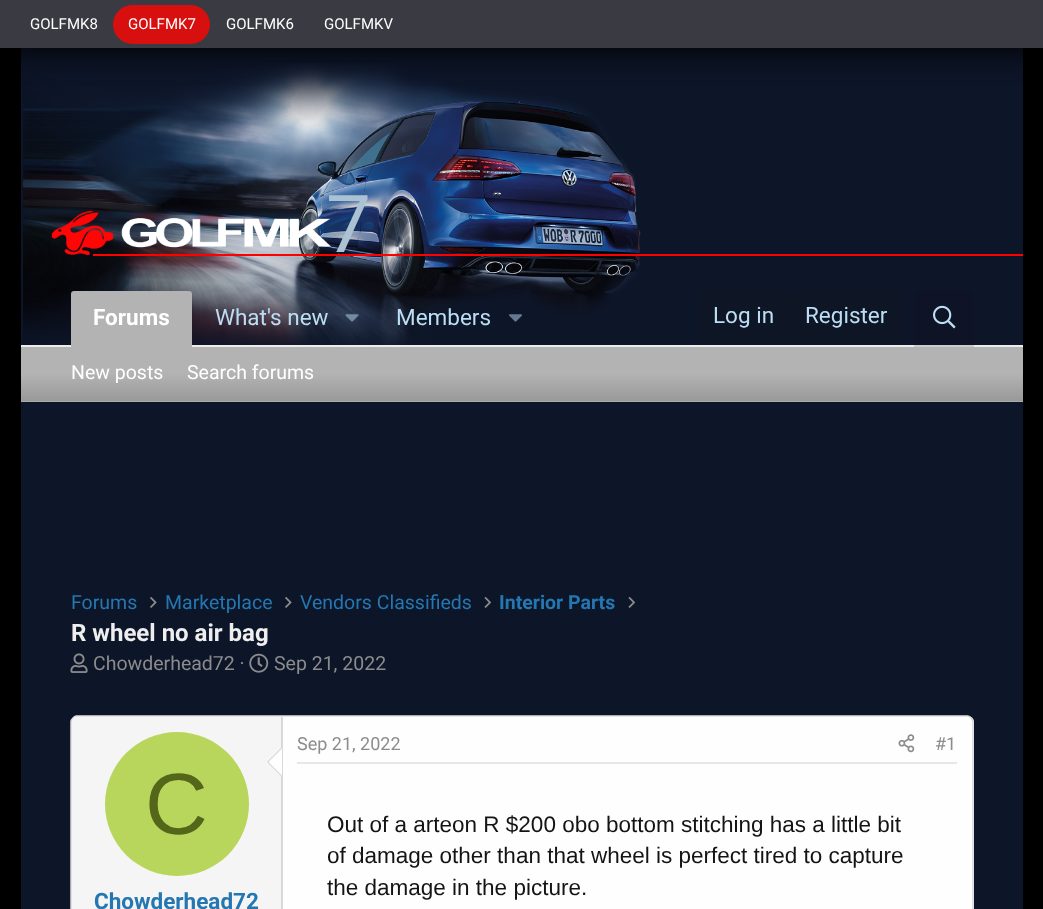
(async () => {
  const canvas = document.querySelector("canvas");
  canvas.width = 1043;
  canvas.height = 909;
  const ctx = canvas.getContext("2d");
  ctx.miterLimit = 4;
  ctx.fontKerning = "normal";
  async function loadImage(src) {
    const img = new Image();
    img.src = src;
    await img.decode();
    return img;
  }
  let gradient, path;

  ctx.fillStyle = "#000000";
  ctx.fillRect(0, 0, 1043, 909);
  ctx.fillStyle = "#0d1528";
  ctx.fillRect(21, 48, 1002, 297);
  ctx.drawImage(await loadImage("img/1.png"), 23, 63, 618, 282);
  ctx.fillStyle = "#000000";
  ctx.filter = "blur(15px)";
  ctx.beginPath();
  ctx.rect(2, 2, 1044, 48);
  ctx.fill();
  ctx.filter = "none";
  ctx.fillStyle = "#3a3a43";
  ctx.fillRect(0, 0, 1043, 48);
  ctx.fillStyle = "#d70f0f";
  ctx.beginPath();
  ctx.roundRect(113, 5, 97, 39, 19.5);
  ctx.fill();
  ctx.fillStyle = "#ececec";
  ctx.fillRect(21, 345, 1002, 2);
  ctx.drawImage(await loadImage("img/2.png"), 51, 210, 63, 45);
  ctx.drawImage(await loadImage("img/3.png"), 121, 218, 211, 30);
  ctx.fillStyle = "#ff0000";
  ctx.fillRect(93, 254, 930, 2);
  ctx.fillStyle = "#b3b3b3";
  ctx.beginPath();
  ctx.roundRect(71, 291, 121, 56, [3, 3, 0, 0]);
  ctx.fill();
  ctx.drawImage(await loadImage("img/4.png"), 345, 314, 14, 8);
  ctx.drawImage(await loadImage("img/5.png"), 509, 314, 13, 8);
  ctx.fillStyle = "#0e1525";
  ctx.beginPath();
  ctx.roundRect(698, 290, 205, 55, [6, 6, 0, 0]);
  ctx.fill();
  ctx.fillStyle = "#0f1522";
  ctx.fillRect(789, 290, 2, 55);
  ctx.fillStyle = "rgba(20, 20, 20, 0.15)";
  ctx.beginPath();
  ctx.roundRect(914, 290, 60, 57, [6, 6, 0, 0]);
  ctx.fill();
  ctx.drawImage(await loadImage("img/6.png"), 933, 305, 23, 24);
  gradient = ctx.createLinearGradient(522, 346, 522, 401);
  gradient.addColorStop(0.5, "#b3b3b3");
  gradient.addColorStop(1, "#999999");
  ctx.fillStyle = gradient;
  ctx.fillRect(21, 347, 1002, 54);
  ctx.fillStyle = "#acacac";
  ctx.fillRect(21, 401, 1002, 1);
  ctx.fillStyle = "#0d1528";
  ctx.fillRect(21, 402, 1002, 507);
  ctx.drawImage(await loadImage("img/7.png"), 150, 597, 7, 11);
  ctx.drawImage(await loadImage("img/7.png"), 285, 597, 7, 11);
  ctx.drawImage(await loadImage("img/8.png"), 484, 597, 7, 11);
  ctx.drawImage(await loadImage("img/8.png"), 628, 597, 7, 11);
  ctx.drawImage(await loadImage("img/9.png"), 70, 653, 18, 20);
  ctx.drawImage(await loadImage("img/10.png"), 249, 653, 20, 20);
  ctx.fillStyle = "#fefefe";
  ctx.beginPath();
  ctx.roundRect(71, 716, 903, 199, 6);
  ctx.fill();
  path = new Path2D("M73 718C74 717 75 716 76.5 716H967.5C969 716 970 717 971 718");
  ctx.strokeStyle = "#dfdfdf";
  ctx.lineWidth = 1.5;
  ctx.stroke(path);
  path = new Path2D("M971 718C972 719 973 720 973 721.5V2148C973 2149.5 972 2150.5 971 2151.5");
  ctx.strokeStyle = "#d8d8d8";
  ctx.stroke(path);
  path = new Path2D("M73 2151.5C72 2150.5 71 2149.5 71 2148V721.5C71 720 72 719 73 718");
  ctx.stroke(path);
  ctx.fillStyle = "#f5f5f5";
  path = new Path2D("M77 717H282V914H77C74 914 72 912 72 909V722C72 719 74 717 77 717Z");
  ctx.fill(path);
  ctx.fillStyle = "#d8d8d8";
  ctx.fillRect(281, 717, 2, 192);
  path = new Path2D("M282 747V777L267 762Z");
  ctx.fill(path);
  ctx.fillStyle = "#fefefe";
  path = new Path2D("M282 748.5V775.5L268.5 762Z");
  ctx.fill(path);
  ctx.fillStyle = "#b8d65c";
  ctx.beginPath();
  ctx.arc(177, 804, 72, 0, Math.PI * 2);
  ctx.fill();
  ctx.fillStyle = "#e7e7e7";
  ctx.fillRect(297, 762, 660, 2);
  ctx.drawImage(await loadImage("img/11.png"), 898, 734, 17, 19);
  ctx.font = "15px Roboto";
  ctx.fillStyle = "#ffffff";
  for (const [text, x, y] of [
    ["GOLFMK8", 30, 29],
    ["GOLFMK7", 128, 29],
    ["GOLFMK6", 226, 29],
    ["GOLFMKV", 324, 29],
  ]) {
    ctx.fillText(text, x, y);
  }
  ctx.font = "80px Roboto";
  ctx.fillStyle = "#aac2d2";
  ctx.fillText("7", 326, 252);
  ctx.font = "bold 22.5px Roboto";
  ctx.fillStyle = "#ffffff";
  ctx.fillText("Forums", 93, 325);
  ctx.font = "22.5px Roboto";
  ctx.fillStyle = "#bcdef5";
  for (const [text, x, y] of [
    ["What's new", 215, 325],
    ["Members", 396, 325],
    ["Log in", 713, 323],
    ["Register", 805, 323],
  ]) {
    ctx.fillText(text, x, y);
  }
  ctx.font = "19.5px Roboto";
  ctx.fillStyle = "#ffffff";
  ctx.fillText("New posts", 71, 379);
  ctx.fillText("Search forums", 187, 379);
  ctx.fillStyle = "#2577b1";
  for (const [text, x, y] of [
    ["Forums", 71, 609],
    ["Marketplace", 165, 609],
    ["Vendors Classifieds", 300, 609],
  ]) {
    ctx.fillText(text, x, y);
  }
  ctx.font = "bold 19.5px Roboto";
  ctx.fillText("Interior Parts", 499, 609);
  ctx.font = "bold 24px Roboto";
  ctx.fillStyle = "#eeeeee";
  ctx.fillText("R wheel no air bag", 71, 641);
  ctx.font = "19.5px Roboto";
  ctx.fillStyle = "#8c8c8c";
  ctx.fillText("Chowderhead72 ·", 93, 670);
  ctx.fillText("Sep 21, 2022", 274, 670);
  ctx.font = "87px Liberation Sans";
  ctx.fillStyle = "#53661a";
  ctx.fillText("C", 145, 834);
  ctx.font = "bold 22.5px Roboto";
  ctx.fillStyle = "#2577b1";
  ctx.fillText("Chowderhead72", 94, 909);
  ctx.font = "18px Roboto";
  ctx.fillStyle = "#8c8c8c";
  ctx.fillText("Sep 21, 2022", 297, 750);
  ctx.fillText("#1", 935, 750);
  ctx.font = "22.5px Liberation Sans";
  ctx.fillStyle = "#141414";
  for (const [text, x, y] of [
    ["Out of a arteon R $200 obo bottom stitching has a little bit", 327, 832],
    ["of damage other than that wheel is perfect tired to capture", 327, 863],
    ["the damage in the picture.", 327, 895],
  ]) {
    ctx.fillText(text, x, y);
  }
})();
